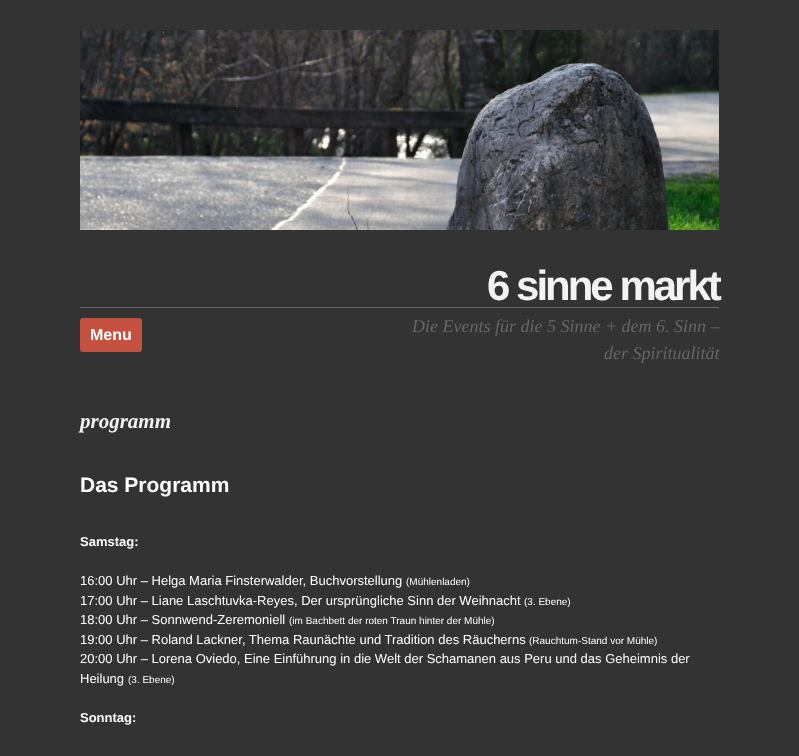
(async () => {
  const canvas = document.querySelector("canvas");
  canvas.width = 799;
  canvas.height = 756;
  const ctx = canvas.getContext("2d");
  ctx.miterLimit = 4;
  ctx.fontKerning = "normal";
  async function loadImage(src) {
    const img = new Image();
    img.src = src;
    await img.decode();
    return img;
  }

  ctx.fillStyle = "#333333";
  ctx.fillRect(0, 0, 799, 756);
  ctx.drawImage(await loadImage("img/1.png"), 80, 30, 639, 200);
  ctx.fillStyle = "#c4513f";
  ctx.beginPath();
  ctx.roundRect(80, 318, 62, 34, 3);
  ctx.fill();
  ctx.fillStyle = "#666666";
  ctx.fillRect(80, 307, 639, 1);
  ctx.font = "bold 16px Liberation Sans";
  ctx.fillStyle = "#ffffff";
  ctx.fillText("Menu", 90, 340);
  ctx.letterSpacing = "-3px";
  ctx.font = "bold 42px Liberation Sans";
  ctx.fillStyle = "#f3f3f3";
  ctx.fillText("6 sinne markt", 487, 300);
  ctx.letterSpacing = "0px";
  ctx.font = "italic 18px Liberation Serif";
  ctx.fillStyle = "#666666";
  ctx.fillText("Die Events für die 5 Sinne + dem 6. Sinn –", 412, 332);
  ctx.fillText("der Spiritualität", 604, 359);
  ctx.font = "italic bold 21px Liberation Serif";
  ctx.fillStyle = "#f3f3f3";
  ctx.fillText("programm", 80, 428);
  ctx.font = "bold 21px Liberation Sans";
  ctx.fillStyle = "#ffffff";
  ctx.fillText("Das Programm", 80, 492);
  ctx.font = "bold 13px Liberation Sans";
  ctx.fillText("Samstag:", 80, 546);
  ctx.font = "13px Liberation Sans";
  ctx.fillText("16:00 Uhr – Helga Maria Finsterwalder, Buchvorstellung", 80, 585);
  ctx.font = "10px Liberation Sans";
  ctx.fillText("(Mühlenladen)", 406, 585);
  ctx.font = "13px Liberation Sans";
  ctx.fillText("17:00 Uhr – Liane Laschtuvka-Reyes, Der ursprüngliche Sinn der Weihnacht", 80, 605);
  ctx.font = "10px Liberation Sans";
  ctx.fillText("(3. Ebene)", 524, 605);
  ctx.font = "13px Liberation Sans";
  ctx.fillText("18:00 Uhr – Sonnwend-Zeremoniell", 80, 624);
  ctx.font = "10px Liberation Sans";
  ctx.fillText("(im Bachbett der roten Traun hinter der Mühle)", 289, 624);
  ctx.font = "13px Liberation Sans";
  ctx.fillText("19:00 Uhr – Roland Lackner, Thema Raunächte und Tradition des Räucherns", 80, 644);
  ctx.font = "10px Liberation Sans";
  ctx.fillText("(Rauchtum-Stand vor Mühle)", 529, 644);
  ctx.font = "13px Liberation Sans";
  ctx.fillText("20:00 Uhr – Lorena Oviedo, Eine Einführung in die Welt der Schamanen aus Peru und das Geheimnis der", 80, 663);
  ctx.fillText("Heilung", 80, 683);
  ctx.font = "10px Liberation Sans";
  ctx.fillText("(3. Ebene)", 128, 683);
  ctx.font = "bold 13px Liberation Sans";
  ctx.fillText("Sonntag:", 80, 722);
})();
